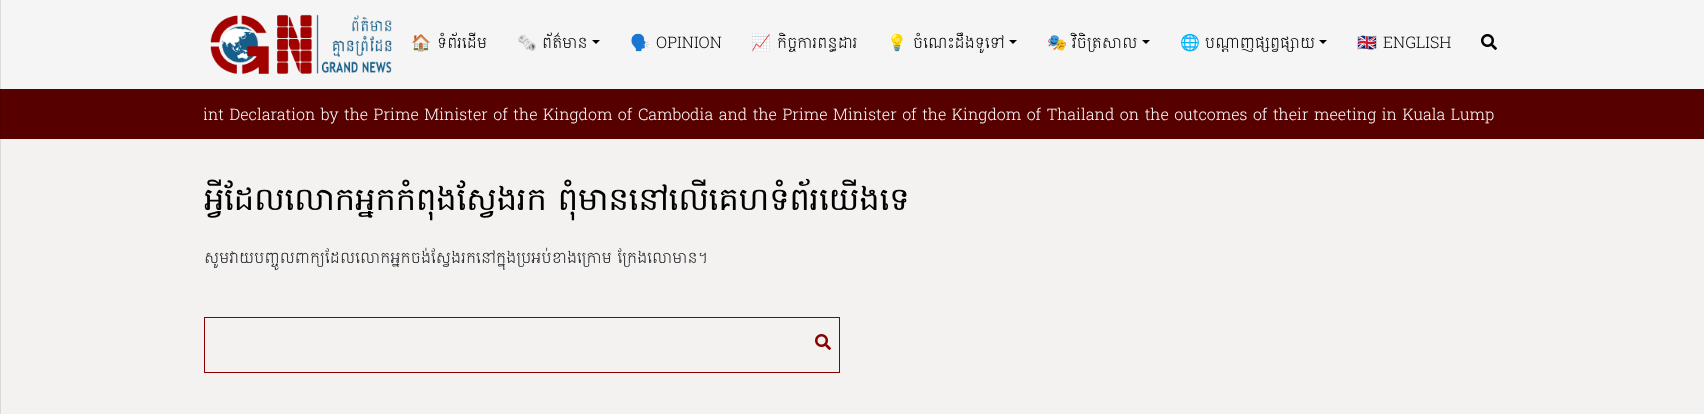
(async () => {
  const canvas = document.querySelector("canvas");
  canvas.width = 1704;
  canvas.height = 414;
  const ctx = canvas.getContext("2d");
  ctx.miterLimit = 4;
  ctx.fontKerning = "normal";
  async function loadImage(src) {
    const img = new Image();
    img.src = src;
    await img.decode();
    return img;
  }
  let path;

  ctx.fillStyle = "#f5f5f5";
  ctx.fillRect(0, 0, 1704, 414);
  ctx.fillStyle = "#570000";
  ctx.fillRect(0, 89, 1704, 50);
  ctx.fillStyle = "#f3f2f1";
  ctx.fillRect(0, 139, 1704, 275);
  ctx.fillStyle = "rgba(0, 0, 0, 0.1)";
  ctx.filter = "blur(0.5px)";
  ctx.beginPath();
  ctx.rect(-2, 0, 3, 414);
  ctx.fill();
  ctx.filter = "none";
  ctx.drawImage(await loadImage("img/1.png"), 210, 14, 182, 60);
  ctx.fillStyle = "#000000";
  path = new Path2D("M592 40H600L596 44Z");
  ctx.fill(path);
  path = new Path2D("M1009 40H1017L1013 44Z");
  ctx.fill(path);
  path = new Path2D("M1142 40H1150L1146 44Z");
  ctx.fill(path);
  path = new Path2D("M1319 40H1327L1323 44Z");
  ctx.fill(path);
  ctx.drawImage(await loadImage("img/2.png"), 1481, 34, 16, 16);
  ctx.strokeStyle = "#8a0000";
  ctx.strokeRect(204.5, 317.5, 635, 55);
  ctx.drawImage(await loadImage("img/3.png"), 815, 334, 16, 16);
  ctx.font = "16px Noto Color Emoji";
  ctx.fillText("🏠", 411, 48);
  ctx.font = "300 16px Hanuman";
  ctx.fillText("ទំព័រដើម", 437, 48);
  ctx.font = "16px Noto Color Emoji";
  ctx.fillText("🗞", 517, 48);
  ctx.font = "300 16px Hanuman";
  ctx.fillText("ព័ត៌មាន", 542, 48);
  ctx.font = "16px Noto Color Emoji";
  ctx.fillText("🗣", 630, 48);
  ctx.font = "300 16px Hanuman";
  ctx.fillText("OPINION", 656, 48);
  ctx.font = "16px Noto Color Emoji";
  ctx.fillText("📈", 751, 48);
  ctx.font = "300 16px Hanuman";
  ctx.fillText("កិច្ចការពន្ធដារ", 777, 48);
  ctx.font = "16px Noto Color Emoji";
  ctx.fillText("💡", 887, 48);
  ctx.font = "300 16px Hanuman";
  ctx.fillText("ចំណេះដឹងទូទៅ", 913, 48);
  ctx.font = "16px Noto Color Emoji";
  ctx.fillText("🎭", 1047, 48);
  ctx.font = "300 16px Hanuman";
  ctx.fillText("វិចិត្រសាល", 1072, 48);
  ctx.font = "16px Noto Color Emoji";
  ctx.fillText("🌐", 1180, 48);
  ctx.font = "300 16px Hanuman";
  ctx.fillText("បណ្តាញផ្សព្វផ្សាយ", 1205, 48);
  ctx.font = "16px Noto Color Emoji";
  ctx.fillText("🇬🇧", 1357, 48);
  ctx.font = "300 16px Hanuman";
  ctx.fillText("ENGLISH", 1383, 48);
  ctx.save();
  ctx.beginPath();
  ctx.rect(204, 104, 1290, 35);
  ctx.clip();
  ctx.fillStyle = "#ffffff";
  ctx.fillText("int Declaration by the Prime Minister of the Kingdom of Cambodia and the Prime Minister of the Kingdom of Thailand on the outcomes of their meeting in Kuala Lump", 203, 120);
  ctx.restore();
  ctx.font = "32px Hanuman";
  ctx.fillText("អ្វីដែលលោកអ្នកកំពុងស្វែងរក ពុំមាននៅលើគេហទំព័រយើងទេ", 204, 210);
  ctx.font = "300 16px Hanuman";
  ctx.fillStyle = "#212529";
  ctx.fillText("សូមវាយបញ្ចូលពាក្យដែលលោកអ្នកចង់ស្វែងរកនៅក្នុងប្រអប់ខាងក្រោម ក្រែងលោមាន។", 204, 263);
})();
